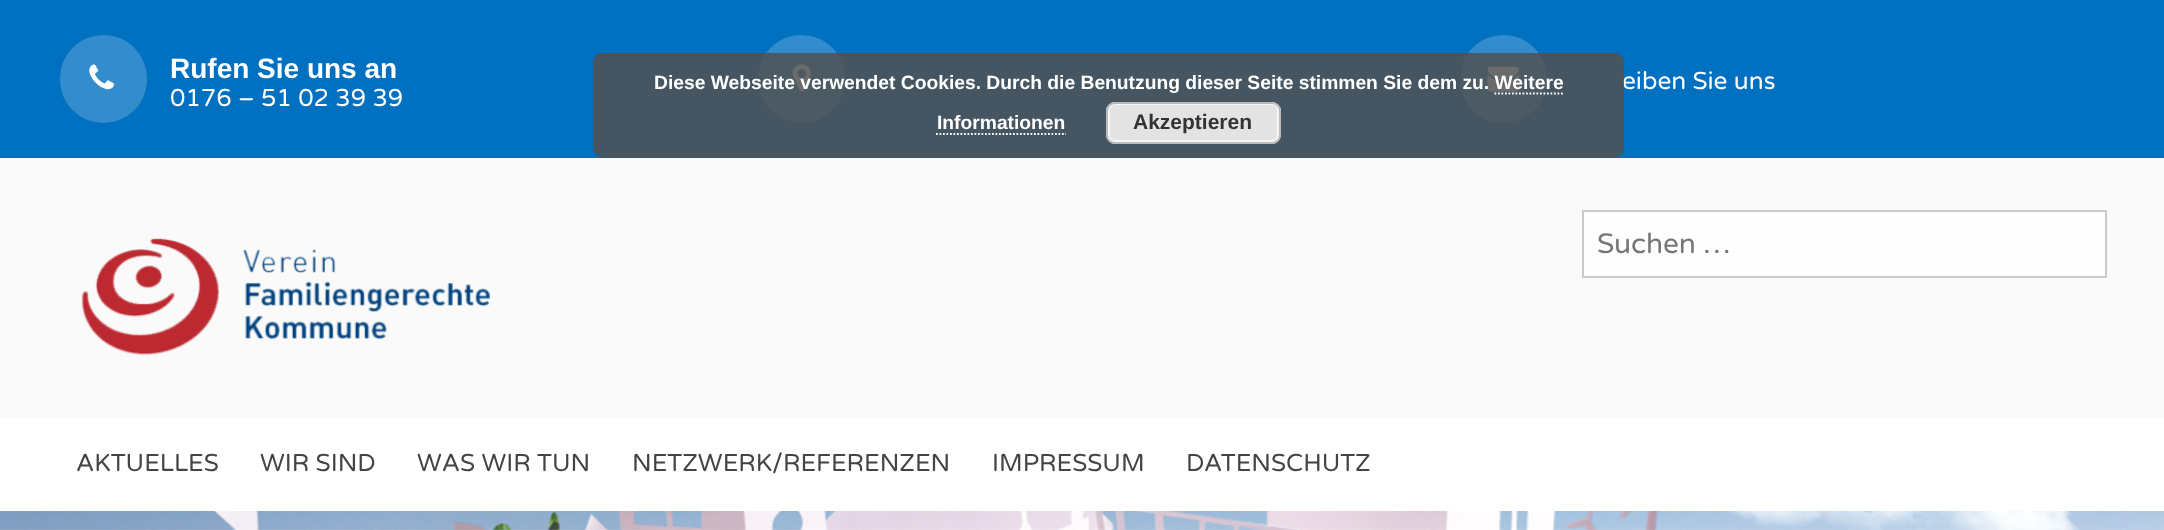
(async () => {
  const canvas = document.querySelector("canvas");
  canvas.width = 2164;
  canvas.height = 530;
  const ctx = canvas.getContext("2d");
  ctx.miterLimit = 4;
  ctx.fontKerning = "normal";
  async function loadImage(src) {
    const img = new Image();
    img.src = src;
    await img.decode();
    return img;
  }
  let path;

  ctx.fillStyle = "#ffffff";
  ctx.fillRect(0, 0, 2164, 530);
  ctx.fillStyle = "#0070c0";
  ctx.fillRect(0, 0, 2164, 158);
  ctx.fillStyle = "#338dcd";
  ctx.beginPath();
  ctx.roundRect(60, 35, 87, 88, 43.5);
  ctx.fill();
  ctx.drawImage(await loadImage("img/1.png"), 89, 64, 25, 26);
  ctx.beginPath();
  ctx.roundRect(758, 35, 87, 88, 43.5);
  ctx.fill();
  ctx.drawImage(await loadImage("img/2.png"), 792, 64, 19, 28);
  ctx.beginPath();
  ctx.roundRect(1460, 35, 87, 88, 43.5);
  ctx.fill();
  ctx.drawImage(await loadImage("img/3.png"), 1487, 66, 32, 26);
  ctx.fillStyle = "#fafafa";
  ctx.fillRect(0, 158, 2164, 259);
  ctx.drawImage(await loadImage("img/4.png"), 81, 238, 410, 118);
  ctx.fillStyle = "#fefefe";
  ctx.beginPath();
  ctx.rect(1583, 211, 523, 66);
  ctx.fill();
  ctx.strokeStyle = "#cacaca";
  ctx.lineWidth = 2;
  ctx.stroke();
  ctx.drawImage(await loadImage("img/5.png"), 0, 511, 2164, 19);
  ctx.font = "bold 28px Liberation Sans";
  ctx.fillStyle = "#ffffff";
  ctx.fillText("Rufen Sie uns an", 170, 78);
  ctx.font = "24.5px Varela Round";
  ctx.fillText("0176 – 51 02 39 39", 170, 106);
  ctx.fillText("eiben Sie uns", 1622, 89);
  ctx.font = "28px Varela Round";
  ctx.fillStyle = "#757575";
  ctx.fillText("Suchen …", 1597, 253);
  ctx.font = "24.5px Varela Round";
  ctx.fillStyle = "#444444";
  for (const [text, x, y] of [
    ["AKTUELLES", 76, 471],
    ["WIR SIND", 260, 471],
    ["WAS WIR TUN", 417, 471],
    ["NETZWERK/REFERENZEN", 632, 471],
    ["IMPRESSUM", 992, 471],
    ["DATENSCHUTZ", 1186, 471],
  ]) {
    ctx.fillText(text, x, y);
  }
  ctx.fillStyle = "rgba(81, 81, 81, 0.85)";
  ctx.beginPath();
  ctx.roundRect(593, 53, 1031, 105, 9);
  ctx.fill();
  ctx.font = "bold 19.25px Liberation Sans";
  ctx.fillStyle = "#ffffff";
  ctx.fillText("Diese Webseite verwendet Cookies. Durch die Benutzung dieser Seite stimmen Sie dem zu. Weitere", 654, 89);
  ctx.fillText("Informationen", 937, 129);
  path = new Path2D("M1494.5 93.5H1563");
  ctx.strokeStyle = "#ffffff";
  ctx.lineWidth = 1.8;
  ctx.setLineDash([1.75, 1.75]);
  ctx.stroke(path);
  path = new Path2D("M936 134H1066");
  ctx.stroke(path);
  ctx.fillStyle = "#e3e3e3";
  ctx.beginPath();
  ctx.roundRect(1106, 102, 175, 42, 9);
  ctx.fill();
  ctx.beginPath();
  ctx.roundRect(1109, 104, 169, 37, 6);
  ctx.strokeStyle = "#f6f6f6";
  ctx.lineWidth = 2;
  ctx.setLineDash([]);
  ctx.stroke();
  ctx.beginPath();
  ctx.roundRect(1107, 103, 173, 40, 8);
  ctx.strokeStyle = "#bbbbbb";
  ctx.stroke();
  ctx.font = "bold 21px Liberation Sans";
  ctx.fillStyle = "#333333";
  ctx.fillText("Akzeptieren", 1133, 129);
})();
